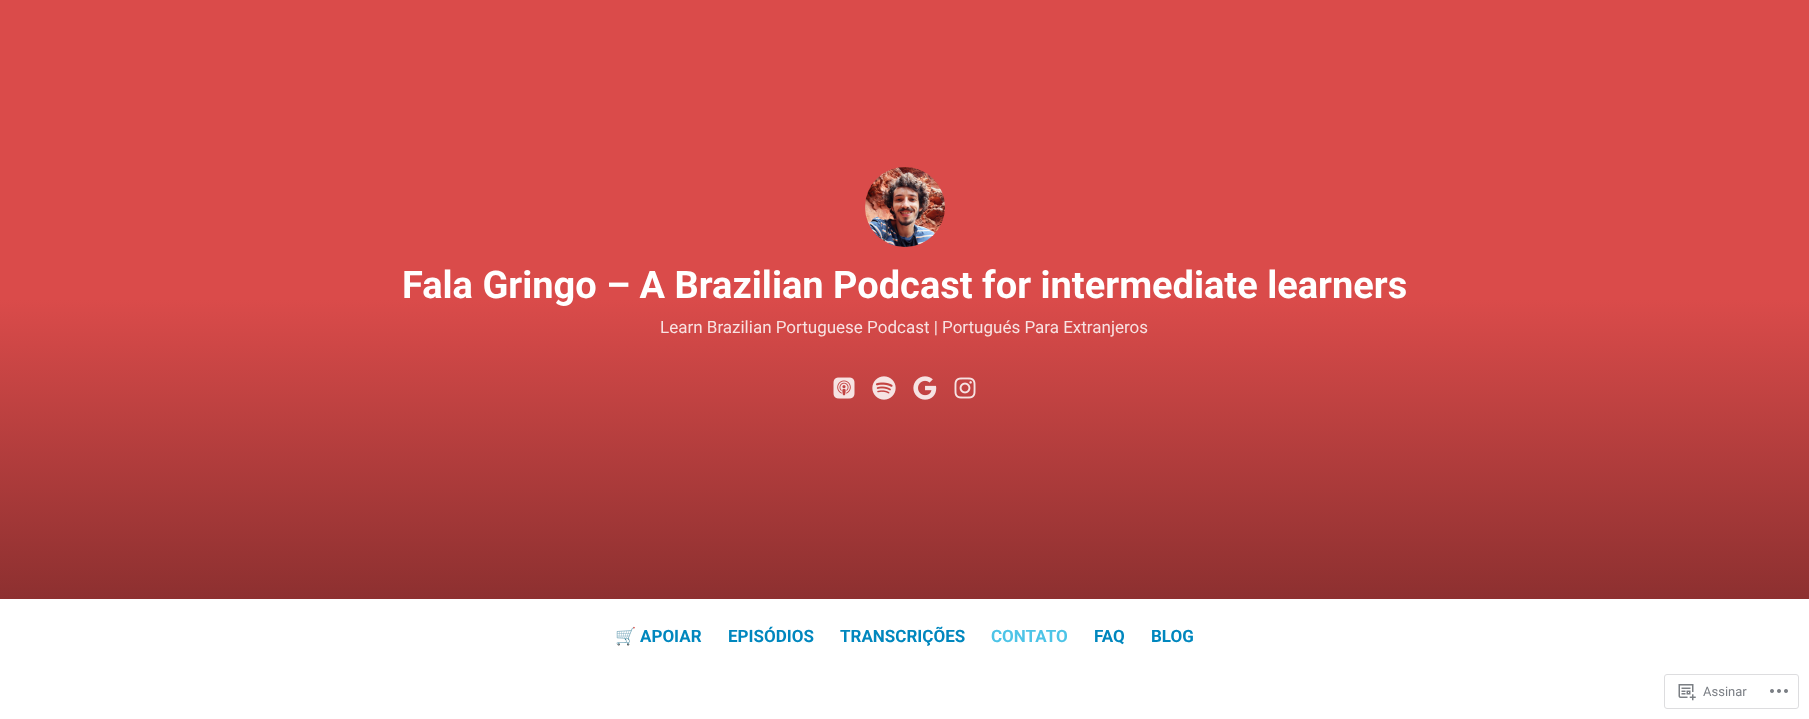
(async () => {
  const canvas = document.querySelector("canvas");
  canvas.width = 1809;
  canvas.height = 719;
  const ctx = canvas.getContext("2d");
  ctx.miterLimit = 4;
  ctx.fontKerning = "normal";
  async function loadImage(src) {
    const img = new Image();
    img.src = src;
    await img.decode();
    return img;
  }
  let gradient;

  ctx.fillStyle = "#ffffff";
  ctx.fillRect(0, 0, 1809, 719);
  gradient = ctx.createLinearGradient(905, 0, 905, 599);
  gradient.addColorStop(0.5, "#da4b4a");
  gradient.addColorStop(1, "#8d3030");
  ctx.fillStyle = gradient;
  ctx.fillRect(0, 0, 1809, 599);
  ctx.drawImage(await loadImage("img/1.png"), 865, 167, 80, 80);
  ctx.drawImage(await loadImage("img/2.png"), 833, 377, 22, 22);
  ctx.drawImage(await loadImage("img/3.png"), 872, 376, 24, 24);
  ctx.drawImage(await loadImage("img/4.png"), 913, 376, 24, 24);
  ctx.drawImage(await loadImage("img/5.png"), 954, 377, 22, 22);
  ctx.beginPath();
  ctx.roundRect(1664.5, 674.5, 134, 34, 2.5);
  ctx.strokeStyle = "#dddddf";
  ctx.stroke();
  ctx.drawImage(await loadImage("img/6.png"), 1678, 684, 18, 17);
  ctx.drawImage(await loadImage("img/7.png"), 1770, 689, 18, 4);
  ctx.font = "bold 38px Roboto";
  ctx.fillStyle = "#ffffff";
  ctx.fillText("Fala Gringo – A Brazilian Podcast for intermediate learners", 402, 298);
  ctx.font = "17px Roboto";
  ctx.fillStyle = "#f8e2e2";
  ctx.fillText("Learn Brazilian Portuguese Podcast | Portugués Para Extranjeros", 660, 333);
  ctx.font = "bold 17px Noto Color Emoji";
  ctx.fillStyle = "#0087be";
  ctx.fillText("🛒", 615, 642);
  ctx.font = "bold 17px Roboto";
  for (const [text, x, y] of [
    ["APOIAR", 640, 642],
    ["EPISÓDIOS", 728, 642],
    ["TRANSCRIÇÕES", 840, 642],
  ]) {
    ctx.fillText(text, x, y);
  }
  ctx.fillStyle = "#4dc4e7";
  ctx.fillText("CONTATO", 991, 642);
  ctx.fillStyle = "#0087be";
  ctx.fillText("FAQ", 1094, 642);
  ctx.fillText("BLOG", 1151, 642);
  ctx.font = "13px Roboto";
  ctx.fillStyle = "#7b7f85";
  ctx.fillText("Assinar", 1703, 696);
})();
